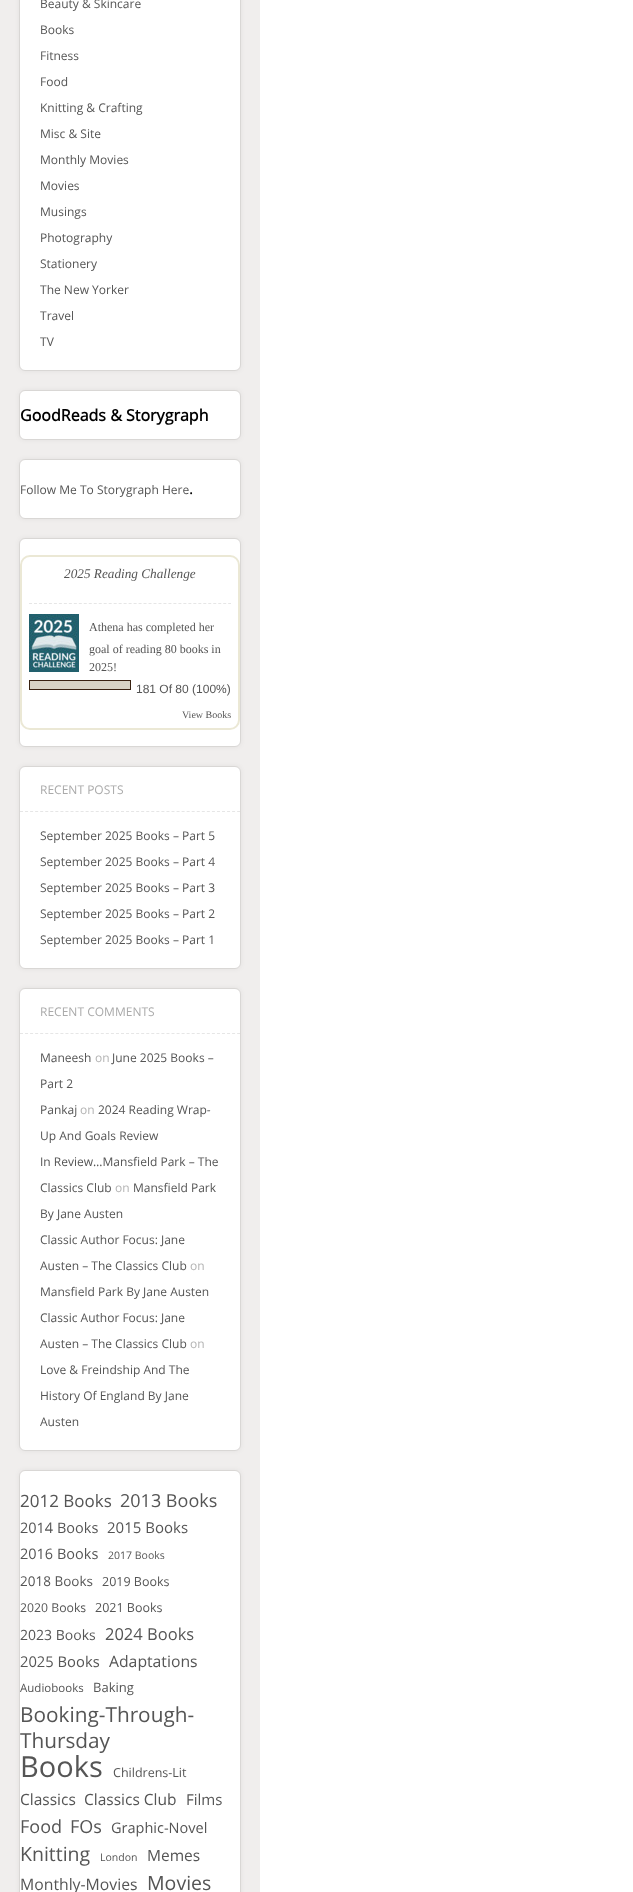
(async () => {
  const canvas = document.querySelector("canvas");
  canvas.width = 633;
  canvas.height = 1892;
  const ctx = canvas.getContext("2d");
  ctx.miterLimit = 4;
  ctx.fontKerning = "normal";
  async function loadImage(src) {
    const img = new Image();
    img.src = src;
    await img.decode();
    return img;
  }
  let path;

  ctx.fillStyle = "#ffffff";
  ctx.fillRect(0, 0, 633, 1892);
  ctx.fillStyle = "#f0eeed";
  ctx.fillRect(0, 0, 260, 1892);
  ctx.fillStyle = "rgba(0, 0, 0, 0.06)";
  ctx.filter = "blur(2.5px)";
  ctx.beginPath();
  ctx.roundRect(19, -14, 222, 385, 6);
  ctx.fill();
  ctx.filter = "none";
  ctx.fillStyle = "#ffffff";
  ctx.beginPath();
  ctx.roundRect(19.5, -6.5, 221, 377, 5.5);
  ctx.fill();
  ctx.strokeStyle = "#d9d7d5";
  ctx.stroke();
  ctx.fillStyle = "rgba(0, 0, 0, 0.06)";
  ctx.filter = "blur(2.5px)";
  ctx.beginPath();
  ctx.roundRect(19, 390, 222, 50, 6);
  ctx.fill();
  ctx.filter = "none";
  ctx.fillStyle = "#ffffff";
  ctx.beginPath();
  ctx.roundRect(19.5, 390.5, 221, 49, 5.5);
  ctx.fill();
  ctx.stroke();
  ctx.fillStyle = "rgba(0, 0, 0, 0.06)";
  ctx.filter = "blur(2.5px)";
  ctx.beginPath();
  ctx.roundRect(19, 459, 222, 60, 6);
  ctx.fill();
  ctx.filter = "none";
  ctx.fillStyle = "#ffffff";
  ctx.beginPath();
  ctx.roundRect(19.5, 459.5, 221, 59, 5.5);
  ctx.fill();
  ctx.stroke();
  ctx.fillStyle = "rgba(0, 0, 0, 0.06)";
  ctx.filter = "blur(2.5px)";
  ctx.beginPath();
  ctx.roundRect(19, 538, 222, 209, 6);
  ctx.fill();
  ctx.filter = "none";
  ctx.fillStyle = "#ffffff";
  ctx.beginPath();
  ctx.roundRect(19.5, 538.5, 221, 208, 5.5);
  ctx.fill();
  ctx.stroke();
  ctx.beginPath();
  ctx.roundRect(21, 556, 218, 173, 9);
  ctx.strokeStyle = "#ebe8d5";
  ctx.lineWidth = 2;
  ctx.stroke();
  path = new Path2D("M29 603.5H231");
  ctx.strokeStyle = "#e6e6e6";
  ctx.lineWidth = 1;
  ctx.setLineDash([3, 1.98]);
  ctx.stroke(path);
  ctx.drawImage(await loadImage("img/1.png"), 29, 614, 50, 58);
  ctx.strokeStyle = "#382110";
  ctx.setLineDash([]);
  ctx.strokeRect(29.5, 680.5, 101, 9);
  ctx.fillStyle = "#d7d2c4";
  ctx.fillRect(30, 681, 100, 8);
  ctx.fillStyle = "rgba(0, 0, 0, 0.06)";
  ctx.filter = "blur(2.5px)";
  ctx.beginPath();
  ctx.roundRect(19, 766, 222, 203, 6);
  ctx.fill();
  ctx.filter = "none";
  ctx.fillStyle = "#ffffff";
  ctx.beginPath();
  ctx.roundRect(19.5, 766.5, 221, 202, 5.5);
  ctx.fill();
  ctx.strokeStyle = "#d9d7d5";
  ctx.stroke();
  path = new Path2D("M20 811.5H240");
  ctx.strokeStyle = "#e6e6e6";
  ctx.setLineDash([3, 2.05]);
  ctx.stroke(path);
  ctx.fillStyle = "rgba(0, 0, 0, 0.06)";
  ctx.filter = "blur(2.5px)";
  ctx.beginPath();
  ctx.roundRect(19, 988, 222, 463, 6);
  ctx.fill();
  ctx.filter = "none";
  ctx.fillStyle = "#ffffff";
  ctx.beginPath();
  ctx.roundRect(19.5, 988.5, 221, 462, 5.5);
  ctx.fill();
  ctx.strokeStyle = "#d9d7d5";
  ctx.setLineDash([]);
  ctx.stroke();
  path = new Path2D("M20 1033.5H240");
  ctx.strokeStyle = "#e6e6e6";
  ctx.setLineDash([3, 2.05]);
  ctx.stroke(path);
  ctx.fillStyle = "rgba(0, 0, 0, 0.06)";
  ctx.filter = "blur(2.5px)";
  ctx.beginPath();
  ctx.roundRect(19, 1470, 222, 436, 6);
  ctx.fill();
  ctx.filter = "none";
  ctx.fillStyle = "#ffffff";
  ctx.beginPath();
  ctx.roundRect(19.5, 1470.5, 221, 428, 5.5);
  ctx.fill();
  ctx.strokeStyle = "#d9d7d5";
  ctx.setLineDash([]);
  ctx.stroke();
  ctx.font = "12px Open Sans";
  ctx.fillStyle = "#555555";
  for (const [text, x, y] of [
    ["Beauty & Skincare", 40, 8],
    ["Books", 40, 34],
    ["Fitness", 40, 60],
    ["Food", 40, 86],
    ["Knitting & Crafting", 40, 112],
    ["Misc & Site", 40, 138],
    ["Monthly Movies", 40, 164],
    ["Movies", 40, 190],
    ["Musings", 40, 216],
    ["Photography", 40, 242],
    ["Stationery", 40, 268],
    ["The New Yorker", 40, 294],
    ["Travel", 40, 320],
    ["TV", 40, 346],
  ]) {
    ctx.fillText(text, x, y);
  }
  ctx.font = "bold 16px Open Sans";
  ctx.fillStyle = "#000000";
  ctx.fillText("GoodReads & Storygraph", 20, 421);
  ctx.font = "12px Open Sans";
  ctx.fillStyle = "#555555";
  ctx.fillText("Follow Me To Storygraph Here", 20, 494);
  ctx.font = "16px Open Sans";
  ctx.fillStyle = "#000000";
  ctx.fillText(".", 189, 494);
  ctx.font = "italic 13.25px Liberation Serif";
  ctx.fillStyle = "#555555";
  ctx.fillText("2025 Reading Challenge", 64, 578);
  ctx.font = "12px Liberation Serif";
  for (const [text, x, y] of [
    ["Athena has completed her", 89, 631],
    ["goal of reading 80 books in", 89, 653],
    ["2025!", 89, 671],
  ]) {
    ctx.fillText(text, x, y);
  }
  ctx.font = "12px Liberation Sans";
  ctx.fillText("181 Of 80 (100%)", 136, 693);
  ctx.font = "10px Liberation Serif";
  ctx.fillText("View Books", 182, 718);
  ctx.font = "12px Open Sans";
  ctx.fillStyle = "#aaaaaa";
  ctx.fillText("RECENT POSTS", 40, 794);
  ctx.fillStyle = "#555555";
  for (const [text, x, y] of [
    ["September 2025 Books – Part 5", 40, 840],
    ["September 2025 Books – Part 4", 40, 866],
    ["September 2025 Books – Part 3", 40, 892],
    ["September 2025 Books – Part 2", 40, 918],
    ["September 2025 Books – Part 1", 40, 944],
  ]) {
    ctx.fillText(text, x, y);
  }
  ctx.fillStyle = "#aaaaaa";
  ctx.fillText("RECENT COMMENTS", 40, 1016);
  ctx.fillStyle = "#555555";
  ctx.fillText("Maneesh", 40, 1062);
  ctx.fillStyle = "#b4b4b4";
  ctx.fillText("on", 95, 1062);
  ctx.fillStyle = "#555555";
  for (const [text, x, y] of [
    ["June 2025 Books –", 112, 1062],
    ["Part 2", 40, 1088],
    ["Pankaj", 40, 1114],
  ]) {
    ctx.fillText(text, x, y);
  }
  ctx.fillStyle = "#b4b4b4";
  ctx.fillText("on", 80, 1114);
  ctx.fillStyle = "#555555";
  for (const [text, x, y] of [
    ["2024 Reading Wrap-", 98, 1114],
    ["Up And Goals Review", 40, 1140],
    ["In Review…Mansfield Park – The", 40, 1166],
    ["Classics Club", 40, 1192],
  ]) {
    ctx.fillText(text, x, y);
  }
  ctx.fillStyle = "#b4b4b4";
  ctx.fillText("on", 115, 1192);
  ctx.fillStyle = "#555555";
  for (const [text, x, y] of [
    ["Mansfield Park", 133, 1192],
    ["By Jane Austen", 40, 1218],
    ["Classic Author Focus: Jane", 40, 1244],
    ["Austen – The Classics Club", 40, 1270],
  ]) {
    ctx.fillText(text, x, y);
  }
  ctx.fillStyle = "#b4b4b4";
  ctx.fillText("on", 190, 1270);
  ctx.fillStyle = "#555555";
  for (const [text, x, y] of [
    ["Mansfield Park By Jane Austen", 40, 1296],
    ["Classic Author Focus: Jane", 40, 1322],
    ["Austen – The Classics Club", 40, 1348],
  ]) {
    ctx.fillText(text, x, y);
  }
  ctx.fillStyle = "#b4b4b4";
  ctx.fillText("on", 190, 1348);
  ctx.fillStyle = "#555555";
  for (const [text, x, y] of [
    ["Love & Freindship And The", 40, 1374],
    ["History Of England By Jane", 40, 1400],
    ["Austen", 40, 1426],
  ]) {
    ctx.fillText(text, x, y);
  }
  ctx.font = "17px Open Sans";
  ctx.fillText("2012 Books", 20, 1507);
  ctx.font = "18px Open Sans";
  ctx.fillText("2013 Books", 120, 1507);
  ctx.font = "14.5px Open Sans";
  ctx.fillText("2014 Books", 20, 1533);
  ctx.font = "15px Open Sans";
  ctx.fillText("2015 Books", 107, 1533);
  ctx.font = "14.5px Open Sans";
  ctx.fillText("2016 Books", 20, 1559);
  ctx.font = "10.5px Open Sans";
  ctx.fillText("2017 Books", 108, 1559);
  ctx.font = "13.5px Open Sans";
  ctx.fillText("2018 Books", 20, 1586);
  ctx.font = "12.5px Open Sans";
  ctx.fillText("2019 Books", 102, 1586);
  ctx.font = "12.25px Open Sans";
  ctx.fillText("2020 Books", 20, 1612);
  ctx.font = "12.5px Open Sans";
  ctx.fillText("2021 Books", 95, 1612);
  ctx.font = "14px Open Sans";
  ctx.fillText("2023 Books", 20, 1640);
  ctx.font = "16.5px Open Sans";
  ctx.fillText("2024 Books", 105, 1640);
  ctx.font = "14.75px Open Sans";
  ctx.fillText("2025 Books", 20, 1667);
  ctx.font = "15.75px Open Sans";
  ctx.fillText("Adaptations", 109, 1667);
  ctx.font = "11.5px Open Sans";
  ctx.fillText("Audiobooks", 20, 1692);
  ctx.font = "13px Open Sans";
  ctx.fillText("Baking", 93, 1692);
  ctx.font = "20.75px Open Sans";
  ctx.fillText("Booking-Through-", 20, 1722);
  ctx.fillText("Thursday", 20, 1748);
  ctx.font = "29px Open Sans";
  ctx.fillText("Books", 20, 1777);
  ctx.font = "12.5px Open Sans";
  ctx.fillText("Childrens-Lit", 113, 1777);
  ctx.font = "15.5px Open Sans";
  ctx.fillText("Classics", 20, 1805);
  ctx.fillText("Classics Club", 84, 1805);
  ctx.font = "15px Open Sans";
  ctx.fillText("Films", 186, 1805);
  ctx.font = "18px Open Sans";
  ctx.fillText("Food", 20, 1833);
  ctx.fillText("FOs", 70, 1833);
  ctx.font = "14.5px Open Sans";
  ctx.fillText("Graphic-Novel", 111, 1833);
  ctx.font = "19.5px Open Sans";
  ctx.fillText("Knitting", 20, 1861);
  ctx.font = "10.5px Open Sans";
  ctx.fillText("London", 100, 1861);
  ctx.font = "15.5px Open Sans";
  ctx.fillText("Memes", 147, 1861);
  ctx.font = "15.75px Open Sans";
  ctx.fillText("Monthly-Movies", 20, 1890);
  ctx.font = "19.5px Open Sans";
  ctx.fillText("Movies", 147, 1890);
})();
